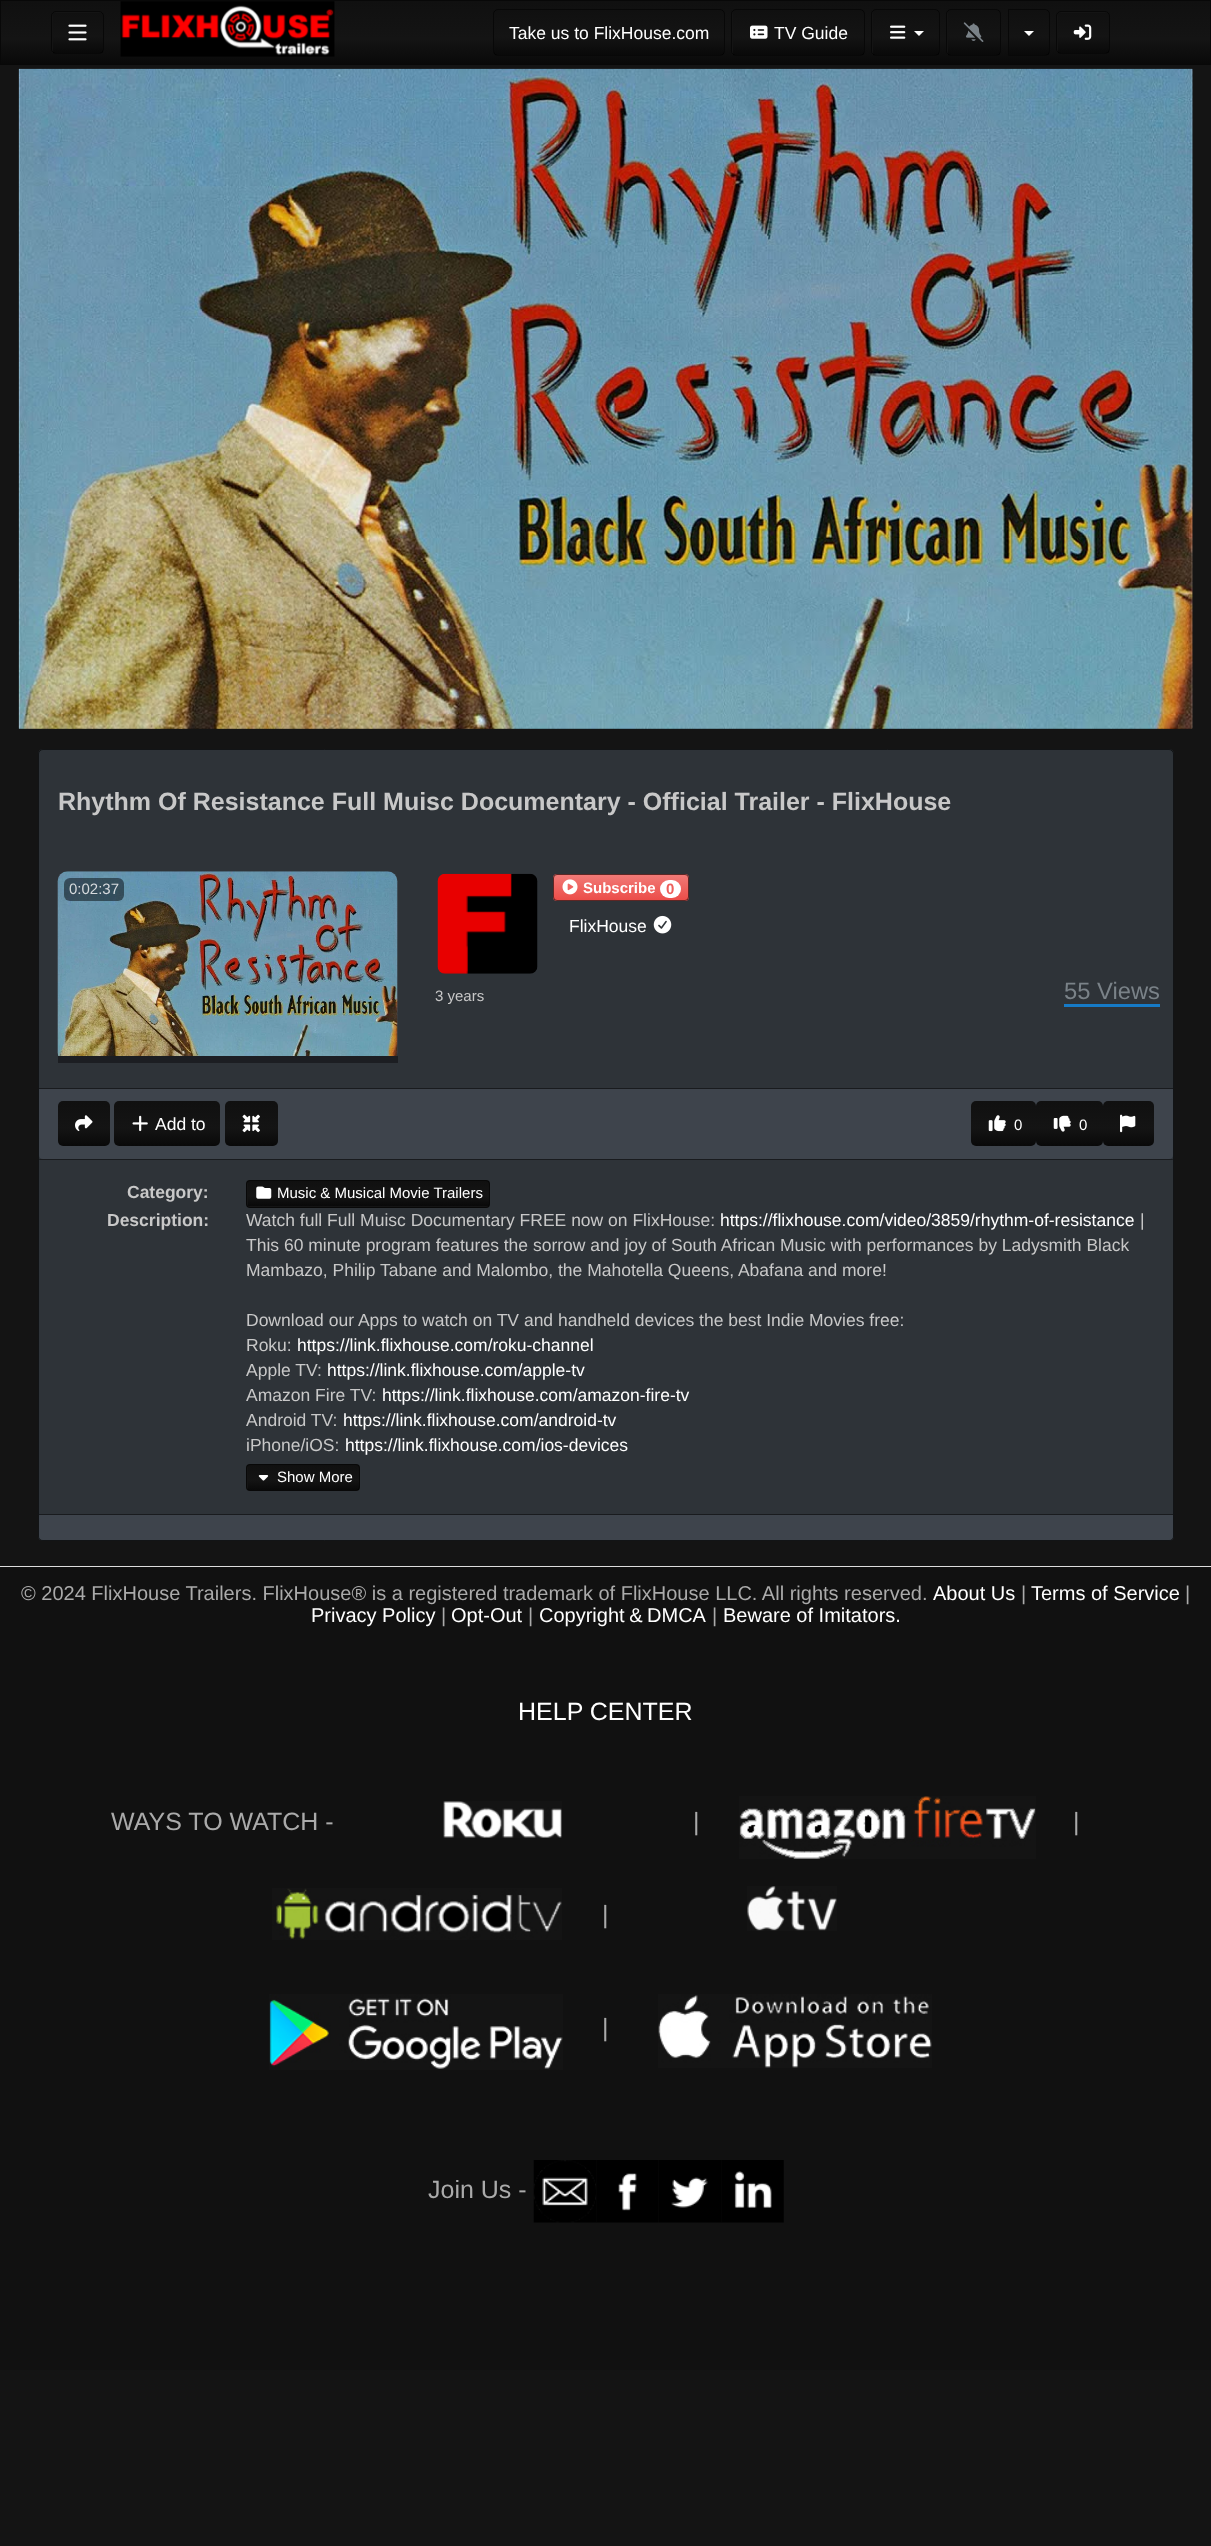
(async () => {
  const canvas = document.querySelector("canvas");
  canvas.width = 1211;
  canvas.height = 2546;
  const ctx = canvas.getContext("2d");
  ctx.miterLimit = 4;
  ctx.fontKerning = "normal";
  async function loadImage(src) {
    const img = new Image();
    img.src = src;
    await img.decode();
    return img;
  }
  let gradient, path;

  ctx.fillStyle = "#141414";
  ctx.fillRect(0, 0, 1211, 2546);
  gradient = ctx.createLinearGradient(606, 1.2, 606, 64);
  gradient.addColorStop(0, "#101010");
  gradient.addColorStop(0.6, "#141414");
  gradient.addColorStop(1, "#090909");
  ctx.fillStyle = gradient;
  ctx.fillRect(1, 1, 1209, 63);
  ctx.strokeStyle = "#080808";
  ctx.strokeRect(0.5, 0.5, 1210, 64);
  ctx.fillStyle = "#141414";
  ctx.beginPath();
  ctx.roundRect(51, 11, 53, 43, 5);
  ctx.fill();
  gradient = ctx.createLinearGradient(78, 12, 78, 53);
  gradient.addColorStop(0, "#101010");
  gradient.addColorStop(0.6, "#141414");
  gradient.addColorStop(1, "#090909");
  ctx.fillStyle = gradient;
  ctx.fillRect(53, 13, 50, 40);
  ctx.beginPath();
  ctx.roundRect(51.5, 11.5, 52, 42, 4.5);
  ctx.strokeStyle = "rgba(0, 0, 0, 0.6)";
  ctx.stroke();
  ctx.drawImage(await loadImage("img/1.png"), 68, 24, 19, 17);
  ctx.drawImage(await loadImage("img/2.png"), 120, 1, 215, 56);
  ctx.fillStyle = "#141414";
  ctx.beginPath();
  ctx.roundRect(493, 9, 232, 47, 5);
  ctx.fill();
  ctx.save();
  ctx.beginPath();
  ctx.roundRect(493, 9, 232, 47, 5);
  ctx.clip();
  gradient = ctx.createLinearGradient(609, 10, 609, 55);
  gradient.addColorStop(0, "#101010");
  gradient.addColorStop(0.6, "#141414");
  gradient.addColorStop(1, "#090909");
  ctx.fillStyle = gradient;
  ctx.fillRect(494, 10, 230, 45);
  ctx.restore();
  ctx.beginPath();
  ctx.roundRect(493.5, 9.5, 231, 46, 4.5);
  ctx.stroke();
  ctx.beginPath();
  ctx.roundRect(731, 9, 134, 47, 5);
  ctx.fill();
  gradient = ctx.createLinearGradient(798, 10, 798, 55);
  gradient.addColorStop(0, "#101010");
  gradient.addColorStop(0.6, "#141414");
  gradient.addColorStop(1, "#090909");
  ctx.fillStyle = gradient;
  ctx.fillRect(733, 10, 131, 45);
  ctx.beginPath();
  ctx.roundRect(731.5, 9.5, 133, 46, 4.5);
  ctx.stroke();
  ctx.drawImage(await loadImage("img/3.png"), 750, 25, 18, 14);
  ctx.fillStyle = "#141414";
  ctx.beginPath();
  ctx.roundRect(871, 9, 69, 47, 5);
  ctx.fill();
  gradient = ctx.createLinearGradient(906, 10, 906, 55);
  gradient.addColorStop(0, "#101010");
  gradient.addColorStop(0.6, "#141414");
  gradient.addColorStop(1, "#090909");
  ctx.fillStyle = gradient;
  ctx.fillRect(873, 10, 66, 45);
  ctx.beginPath();
  ctx.roundRect(871.5, 9.5, 68, 46, 4.5);
  ctx.stroke();
  ctx.drawImage(await loadImage("img/4.png"), 890, 25, 16, 14);
  ctx.fillStyle = "#ffffff";
  path = new Path2D("M914 31H924L919 36Z");
  ctx.fill(path);
  ctx.fillStyle = "#141414";
  ctx.beginPath();
  ctx.roundRect(946, 9, 55, 47, 5);
  ctx.fill();
  gradient = ctx.createLinearGradient(974, 10, 974, 55);
  gradient.addColorStop(0, "#101010");
  gradient.addColorStop(0.6, "#141414");
  gradient.addColorStop(1, "#090909");
  ctx.fillStyle = gradient;
  ctx.fillRect(948, 10, 52, 45);
  ctx.beginPath();
  ctx.roundRect(946.5, 9.5, 54, 46, 4.5);
  ctx.stroke();
  ctx.drawImage(await loadImage("img/5.png"), 963, 22, 21, 20);
  ctx.fillStyle = "#141414";
  ctx.beginPath();
  ctx.roundRect(1008, 9, 42, 47, [0, 5, 5, 0]);
  ctx.fill();
  gradient = ctx.createLinearGradient(1029, 10, 1029, 55);
  gradient.addColorStop(0, "#101010");
  gradient.addColorStop(0.6, "#141414");
  gradient.addColorStop(1, "#090909");
  ctx.fillStyle = gradient;
  ctx.fillRect(1009, 10, 40, 45);
  ctx.beginPath();
  ctx.roundRect(1008.5, 9.5, 41, 46, [0, 4.5, 4.5, 0]);
  ctx.stroke();
  ctx.fillStyle = "#ffffff";
  path = new Path2D("M1024 31H1034L1029 36Z");
  ctx.fill(path);
  ctx.fillStyle = "#141414";
  ctx.beginPath();
  ctx.roundRect(1056, 11, 54, 43, 5);
  ctx.fill();
  gradient = ctx.createLinearGradient(1083, 12, 1083, 53);
  gradient.addColorStop(0, "#101010");
  gradient.addColorStop(0.6, "#141414");
  gradient.addColorStop(1, "#090909");
  ctx.fillStyle = gradient;
  ctx.fillRect(1058, 13, 51, 40);
  ctx.beginPath();
  ctx.roundRect(1056.5, 11.5, 53, 42, 4.5);
  ctx.stroke();
  ctx.drawImage(await loadImage("img/6.png"), 1073, 24, 19, 16);
  ctx.fillStyle = "#000000";
  ctx.fillRect(19, 69, 1174, 660);
  ctx.drawImage(await loadImage("img/7.png"), 18, 68, 1175, 661);
  ctx.drawImage(await loadImage("img/8.png"), 18, 68, 1175, 661);
  ctx.fillStyle = "#2e3338";
  ctx.beginPath();
  ctx.roundRect(38, 749, 1136, 792, 5);
  ctx.fill();
  ctx.beginPath();
  ctx.roundRect(38.5, 749.5, 1135, 791, 4.5);
  ctx.stroke();
  ctx.drawImage(await loadImage("img/9.png"), 57, 871, 341, 185);
  ctx.fillStyle = "rgba(0, 0, 0, 0.48)";
  ctx.beginPath();
  ctx.roundRect(64, 878, 60, 23, 6);
  ctx.fill();
  ctx.fillStyle = "#1c1e22";
  ctx.fillRect(58, 1056, 340, 7);
  ctx.drawImage(await loadImage("img/10.png"), 437, 873, 101, 101);
  ctx.fillStyle = "#ee5f5b";
  ctx.beginPath();
  ctx.roundRect(553, 874, 136, 27, 4);
  ctx.fill();
  ctx.save();
  ctx.beginPath();
  ctx.roundRect(553, 874, 136, 27, 4);
  ctx.clip();
  gradient = ctx.createLinearGradient(621, 875, 621, 900);
  gradient.addColorStop(0, "#f17a77");
  gradient.addColorStop(0.6, "#ee5f5b");
  gradient.addColorStop(1, "#ec4d49");
  ctx.fillStyle = gradient;
  ctx.fillRect(554, 875, 134, 25);
  ctx.restore();
  ctx.beginPath();
  ctx.roundRect(553.5, 874.5, 135, 26, 3.5);
  ctx.stroke();
  ctx.drawImage(await loadImage("img/11.png"), 562, 879, 16, 16);
  ctx.fillStyle = "#ffffff";
  ctx.beginPath();
  ctx.roundRect(660, 880, 21, 18, 9);
  ctx.fill();
  ctx.drawImage(await loadImage("img/12.png"), 653, 915, 19, 19);
  ctx.fillStyle = "#167ac6";
  ctx.fillRect(1064, 1004, 96, 3);
  ctx.fillStyle = "#3e444c";
  ctx.beginPath();
  ctx.roundRect(39, 1088, 1134, 71, [0, 0, 4, 4]);
  ctx.fill();
  ctx.fillStyle = "#191b1e";
  ctx.fillRect(39, 1088, 1134, 1);
  gradient = ctx.createLinearGradient(84, 1101, 84, 1146);
  gradient.addColorStop(0, "#101010");
  gradient.addColorStop(0.6, "#141414");
  gradient.addColorStop(1, "#090909");
  ctx.fillStyle = gradient;
  ctx.beginPath();
  ctx.roundRect(58, 1101, 52, 45, 5);
  ctx.fill();
  ctx.drawImage(await loadImage("img/13.png"), 75, 1115, 18, 17);
  gradient = ctx.createLinearGradient(167, 1101, 167, 1146);
  gradient.addColorStop(0, "#101010");
  gradient.addColorStop(0.6, "#141414");
  gradient.addColorStop(1, "#090909");
  ctx.fillStyle = gradient;
  ctx.beginPath();
  ctx.roundRect(114, 1101, 106, 45, 5);
  ctx.fill();
  ctx.drawImage(await loadImage("img/14.png"), 132, 1115, 16, 17);
  gradient = ctx.createLinearGradient(251, 1101, 251, 1146);
  gradient.addColorStop(0, "#101010");
  gradient.addColorStop(0.6, "#141414");
  gradient.addColorStop(1, "#090909");
  ctx.fillStyle = gradient;
  ctx.beginPath();
  ctx.roundRect(225, 1101, 53, 45, 5);
  ctx.fill();
  ctx.drawImage(await loadImage("img/15.png"), 242, 1114, 18, 19);
  gradient = ctx.createLinearGradient(1004, 1101, 1004, 1146);
  gradient.addColorStop(0, "#101010");
  gradient.addColorStop(0.6, "#141414");
  gradient.addColorStop(1, "#090909");
  ctx.fillStyle = gradient;
  ctx.beginPath();
  ctx.roundRect(971, 1101, 65, 45, 5);
  ctx.fill();
  ctx.drawImage(await loadImage("img/16.png"), 988, 1115, 18, 17);
  gradient = ctx.createLinearGradient(1069, 1101, 1069, 1146);
  gradient.addColorStop(0, "#101010");
  gradient.addColorStop(0.6, "#141414");
  gradient.addColorStop(1, "#090909");
  ctx.fillStyle = gradient;
  ctx.beginPath();
  ctx.roundRect(1036, 1101, 67, 45, 5);
  ctx.fill();
  ctx.drawImage(await loadImage("img/17.png"), 1053, 1115, 18, 17);
  gradient = ctx.createLinearGradient(1128, 1101, 1128, 1146);
  gradient.addColorStop(0, "#101010");
  gradient.addColorStop(0.6, "#141414");
  gradient.addColorStop(1, "#090909");
  ctx.fillStyle = gradient;
  ctx.beginPath();
  ctx.roundRect(1103, 1101, 51, 45, 5);
  ctx.fill();
  ctx.drawImage(await loadImage("img/18.png"), 1120, 1114, 16, 19);
  ctx.fillStyle = "#191b1e";
  ctx.beginPath();
  ctx.roundRect(39, 1159, 1134, 1, [0, 0, 1, 1]);
  ctx.fill();
  ctx.fillStyle = "#141414";
  ctx.beginPath();
  ctx.roundRect(246, 1180, 244, 28, 4);
  ctx.fill();
  gradient = ctx.createLinearGradient(368, 1181, 368, 1206);
  gradient.addColorStop(0, "#101010");
  gradient.addColorStop(0.6, "#141414");
  gradient.addColorStop(1, "#090909");
  ctx.fillStyle = gradient;
  ctx.fillRect(248, 1181, 241, 25);
  ctx.beginPath();
  ctx.roundRect(246.5, 1180.5, 243, 27, 3.5);
  ctx.stroke();
  ctx.drawImage(await loadImage("img/19.png"), 256, 1186, 16, 13);
  ctx.fillStyle = "#141414";
  ctx.beginPath();
  ctx.roundRect(246, 1464, 114, 27, 4);
  ctx.fill();
  gradient = ctx.createLinearGradient(303, 1465, 303, 1490);
  gradient.addColorStop(0, "#101010");
  gradient.addColorStop(0.6, "#141414");
  gradient.addColorStop(1, "#090909");
  ctx.fillStyle = gradient;
  ctx.fillRect(248, 1465, 111, 25);
  ctx.beginPath();
  ctx.roundRect(246.5, 1464.5, 113, 26, 3.5);
  ctx.stroke();
  ctx.drawImage(await loadImage("img/20.png"), 258, 1475, 11, 6);
  ctx.fillStyle = "#3e444c";
  ctx.beginPath();
  ctx.roundRect(39, 1514, 1134, 26, [0, 0, 4, 4]);
  ctx.fill();
  for (const [x, y, w, h, color] of [
    [39, 1514, 1134, 1, "#191b1e"],
    [0, 1567, 1211, 803, "#111111"],
    [0, 1566, 1211, 1, "#dddddd"],
  ]) {
    ctx.fillStyle = color;
    ctx.fillRect(x, y, w, h);
  }
  ctx.drawImage(await loadImage("img/21.png"), 443, 1801, 119, 37);
  ctx.drawImage(await loadImage("img/22.png"), 739, 1796, 297, 63);
  ctx.drawImage(await loadImage("img/23.png"), 272, 1888, 290, 52);
  ctx.drawImage(await loadImage("img/24.png"), 747, 1886, 90, 45);
  ctx.drawImage(await loadImage("img/25.png"), 269, 1994, 294, 76);
  ctx.drawImage(await loadImage("img/26.png"), 658, 1994, 274, 74);
  ctx.drawImage(await loadImage("img/27.png"), 533, 2160, 64, 63);
  ctx.drawImage(await loadImage("img/28.png"), 596, 2160, 63, 63);
  ctx.drawImage(await loadImage("img/29.png"), 659, 2160, 63, 63);
  ctx.drawImage(await loadImage("img/30.png"), 721, 2160, 63, 63);
  ctx.font = "17.5px Liberation Sans";
  ctx.fillStyle = "#ffffff";
  ctx.fillText("Take us to FlixHouse.com", 509, 39);
  ctx.fillText("TV Guide", 774, 39);
  ctx.font = "bold 25px Liberation Sans";
  ctx.fillStyle = "#c8c8c8";
  ctx.fillText("Rhythm Of Resistance Full Muisc Documentary - Official Trailer - FlixHouse", 58, 810);
  ctx.font = "15px Liberation Sans";
  ctx.fillStyle = "#d7dbde";
  ctx.fillText("0:02:37", 69, 894);
  ctx.font = "bold 15px Liberation Sans";
  ctx.fillStyle = "#ffffff";
  ctx.fillText("Subscribe", 583, 893);
  ctx.fillStyle = "#ee5f5b";
  ctx.fillText("0", 666, 894);
  ctx.font = "17.5px Liberation Sans";
  ctx.fillStyle = "#ffffff";
  ctx.fillText("FlixHouse", 569, 932);
  ctx.font = "15px Liberation Sans";
  ctx.fillStyle = "#c8c8c8";
  ctx.fillText("3 years", 435, 1001);
  ctx.font = "23.75px Liberation Sans";
  ctx.fillStyle = "#7a8288";
  ctx.fillText("55 Views", 1064, 999);
  ctx.font = "17.5px Liberation Sans";
  ctx.fillStyle = "#ffffff";
  ctx.fillText("Add to", 155, 1130);
  ctx.font = "15px Liberation Sans";
  ctx.fillText("0", 1014, 1130);
  ctx.fillText("0", 1079, 1130);
  ctx.font = "bold 17.5px Liberation Sans";
  ctx.fillStyle = "#c8c8c8";
  ctx.fillText("Category:", 127, 1198);
  ctx.font = "15px Liberation Sans";
  ctx.fillStyle = "#ffffff";
  ctx.fillText("Music & Musical Movie Trailers", 277, 1198);
  ctx.font = "bold 17.5px Liberation Sans";
  ctx.fillStyle = "#c8c8c8";
  ctx.fillText("Description:", 107, 1226);
  ctx.font = "17.5px Liberation Sans";
  ctx.fillText("Watch full Full Muisc Documentary FREE now on FlixHouse:", 246, 1226);
  ctx.fillStyle = "#ffffff";
  ctx.fillText("https://flixhouse.com/video/3859/rhythm-of-resistance", 720, 1226);
  ctx.fillStyle = "#c8c8c8";
  for (const [text, x, y] of [
    ["|", 1140, 1226],
    ["This 60 minute program features the sorrow and joy of South African Music with performances by Ladysmith Black", 246, 1251],
    ["Mambazo, Philip Tabane and Malombo, the Mahotella Queens, Abafana and more!", 246, 1276],
    ["Download our Apps to watch on TV and handheld devices the best Indie Movies free:", 246, 1326],
    ["Roku:", 246, 1351],
  ]) {
    ctx.fillText(text, x, y);
  }
  ctx.fillStyle = "#ffffff";
  ctx.fillText("https://link.flixhouse.com/roku-channel", 297, 1351);
  ctx.fillStyle = "#c8c8c8";
  ctx.fillText("Apple TV:", 246, 1376);
  ctx.fillStyle = "#ffffff";
  ctx.fillText("https://link.flixhouse.com/apple-tv", 327, 1376);
  ctx.fillStyle = "#c8c8c8";
  ctx.fillText("Amazon Fire TV:", 246, 1401);
  ctx.fillStyle = "#ffffff";
  ctx.fillText("https://link.flixhouse.com/amazon-fire-tv", 382, 1401);
  ctx.fillStyle = "#c8c8c8";
  ctx.fillText("Android TV:", 246, 1426);
  ctx.fillStyle = "#ffffff";
  ctx.fillText("https://link.flixhouse.com/android-tv", 343, 1426);
  ctx.fillStyle = "#c8c8c8";
  ctx.fillText("iPhone/iOS:", 246, 1451);
  ctx.fillStyle = "#ffffff";
  ctx.fillText("https://link.flixhouse.com/ios-devices", 345, 1451);
  ctx.font = "15px Liberation Sans";
  ctx.fillText("Show More", 277, 1482);
  ctx.font = "20px Liberation Sans";
  ctx.fillStyle = "#aaaaaa";
  ctx.fillText("© 2024 FlixHouse Trailers. FlixHouse® is a registered trademark of FlixHouse LLC. All rights reserved.", 21, 1600);
  ctx.fillStyle = "#ffffff";
  ctx.fillText("About Us", 933, 1600);
  ctx.fillStyle = "#aaaaaa";
  ctx.fillText("|", 1021, 1600);
  ctx.fillStyle = "#ffffff";
  ctx.fillText("Terms of Service", 1031, 1600);
  ctx.fillStyle = "#aaaaaa";
  ctx.fillText("|", 1185, 1600);
  ctx.fillStyle = "#ffffff";
  ctx.fillText("Privacy Policy", 311, 1622);
  ctx.fillStyle = "#aaaaaa";
  ctx.fillText("|", 441, 1622);
  ctx.fillStyle = "#ffffff";
  ctx.fillText("Opt-Out", 451, 1622);
  ctx.fillStyle = "#aaaaaa";
  ctx.fillText("|", 528, 1622);
  ctx.wordSpacing = "-1px";
  ctx.fillStyle = "#ffffff";
  ctx.fillText("Copyright & DMCA", 539, 1622);
  ctx.wordSpacing = "0px";
  ctx.fillStyle = "#aaaaaa";
  ctx.fillText("|", 712, 1622);
  ctx.fillStyle = "#ffffff";
  ctx.fillText("Beware of Imitators.", 723, 1622);
  ctx.font = "25px Liberation Sans";
  ctx.fillText("HELP CENTER", 518, 1720);
  ctx.fillStyle = "#aaaaaa";
  for (const [text, x, y] of [
    ["WAYS TO WATCH -", 111, 1830],
    ["|", 693, 1830],
    ["|", 1073, 1830],
    ["|", 602, 1923],
    ["|", 602, 2036],
    ["Join Us -", 428, 2198],
  ]) {
    ctx.fillText(text, x, y);
  }
})();
